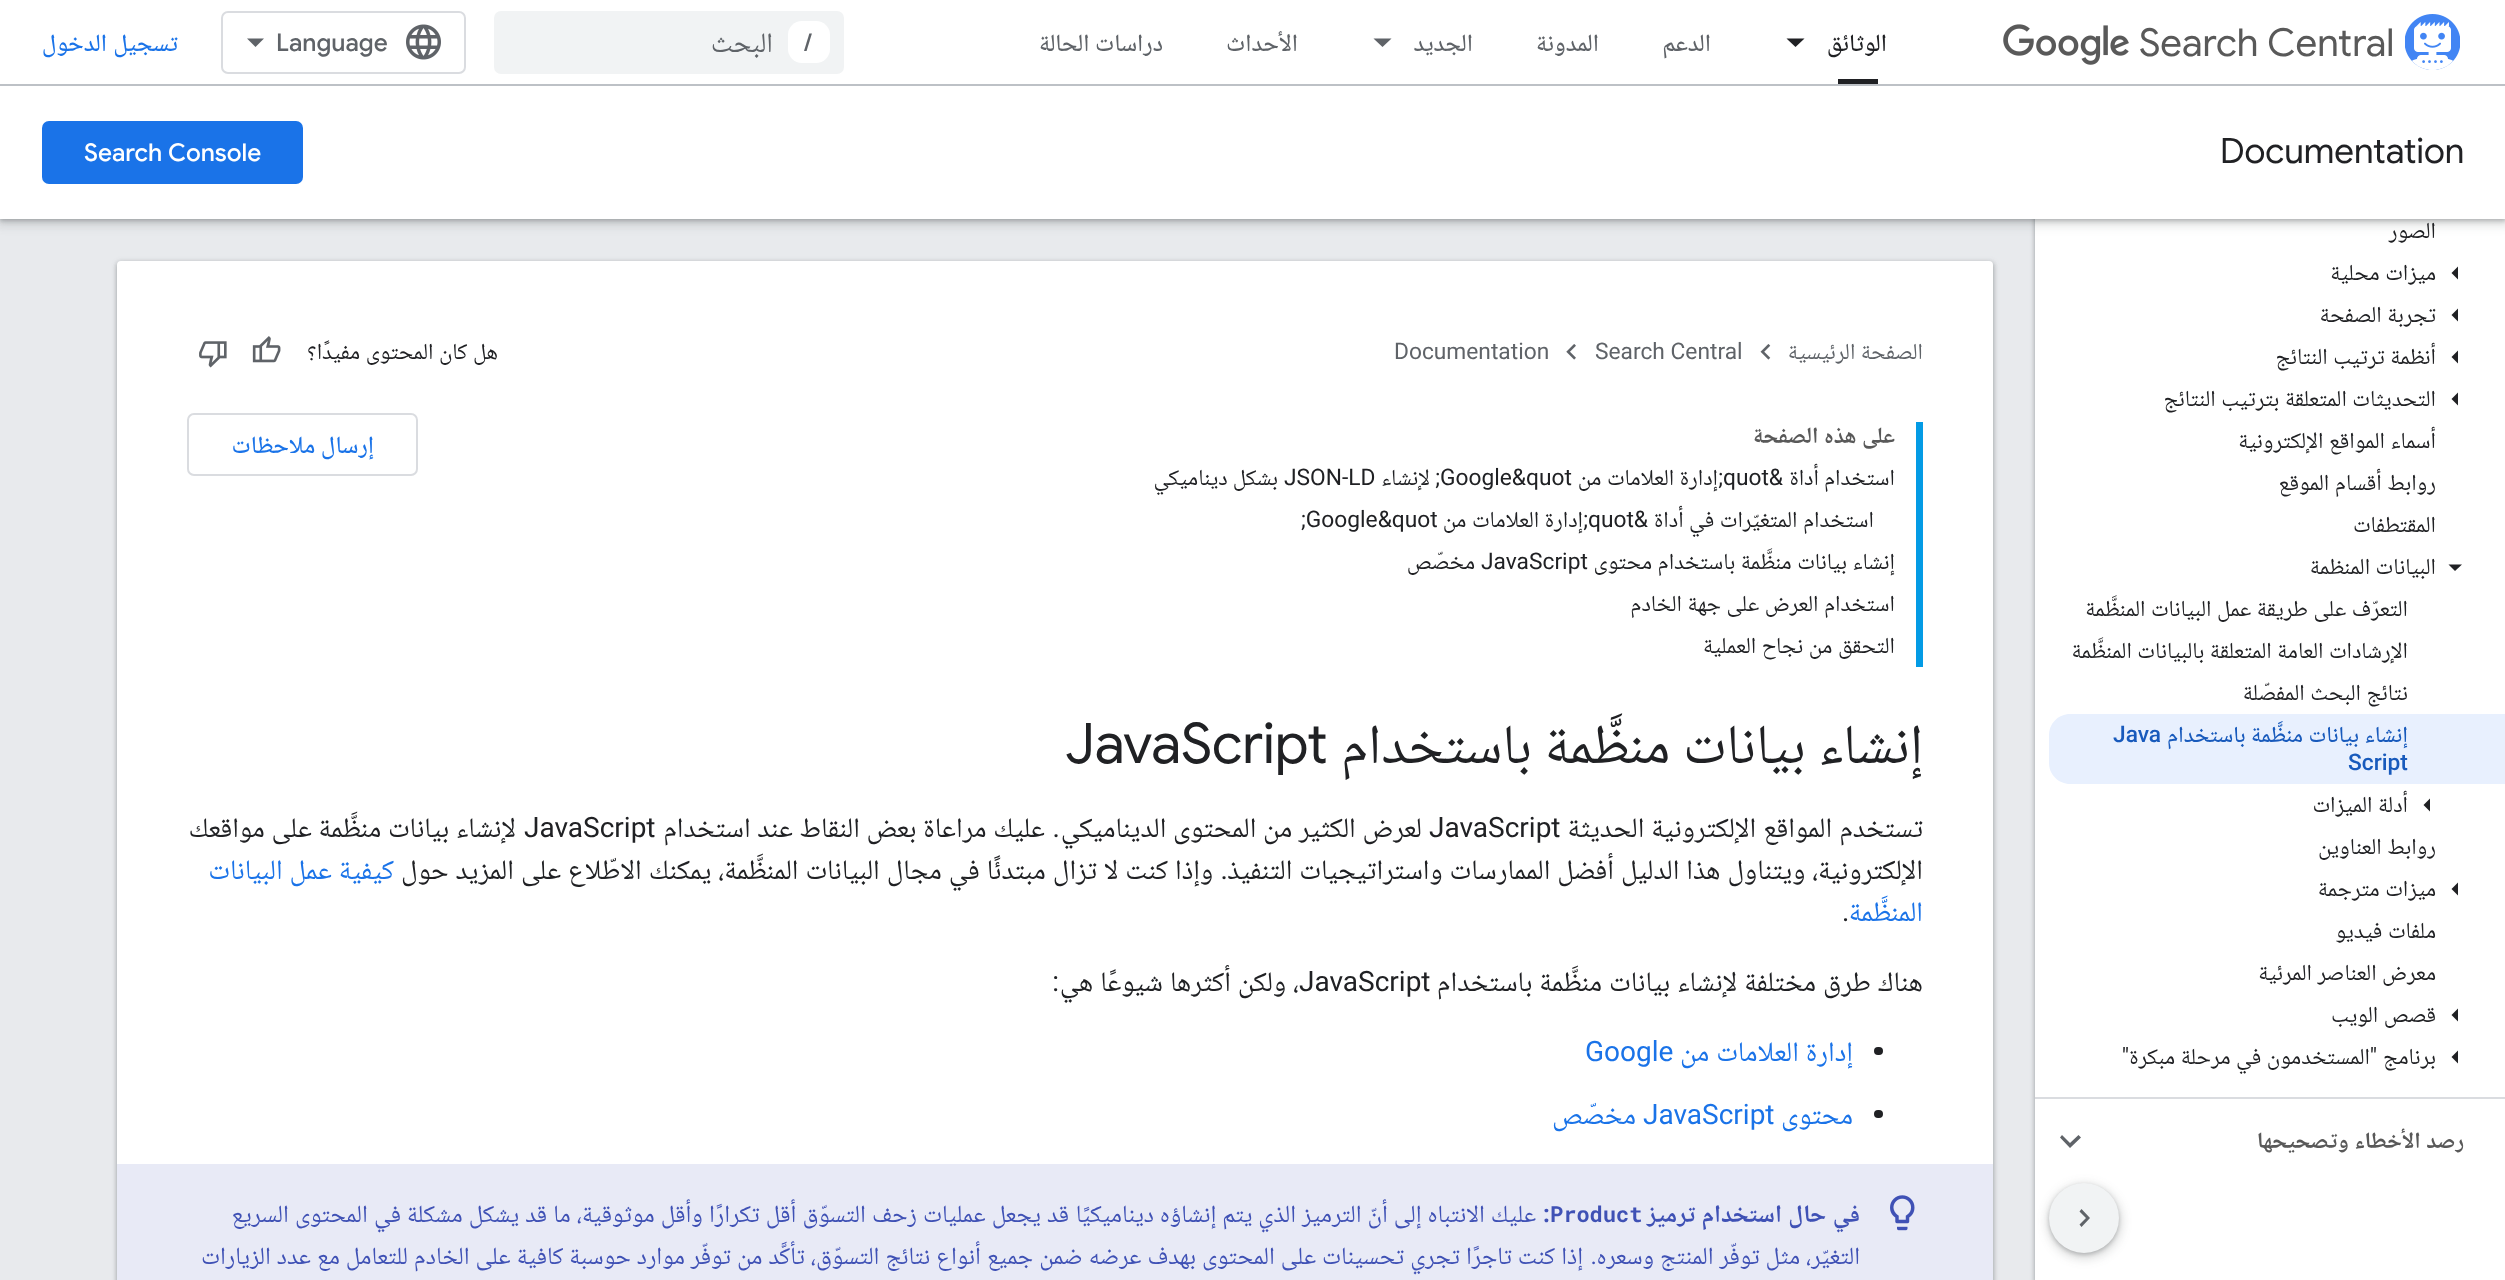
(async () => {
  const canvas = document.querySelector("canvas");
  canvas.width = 2505;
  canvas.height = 1280;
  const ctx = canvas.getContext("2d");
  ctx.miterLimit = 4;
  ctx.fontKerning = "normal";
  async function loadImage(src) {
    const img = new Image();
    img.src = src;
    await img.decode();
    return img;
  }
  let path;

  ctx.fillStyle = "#e8eaed";
  ctx.fillRect(0, 0, 2505, 1280);
  ctx.fillStyle = "rgba(60, 64, 67, 0.15)";
  ctx.filter = "blur(2.5px)";
  ctx.beginPath();
  ctx.rect(2034, 0, 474, 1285);
  ctx.fill();
  ctx.filter = "none";
  ctx.fillStyle = "rgba(60, 64, 67, 0.3)";
  ctx.filter = "blur(2px)";
  ctx.beginPath();
  ctx.rect(2035, 2, 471, 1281);
  ctx.fill();
  ctx.filter = "none";
  ctx.fillStyle = "#ffffff";
  ctx.fillRect(2035, 219, 470, 1061);
  ctx.fillStyle = "rgba(60, 64, 67, 0.15)";
  ctx.filter = "blur(5px)";
  ctx.beginPath();
  ctx.rect(-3, 86, 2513, 140);
  ctx.fill();
  ctx.filter = "none";
  ctx.fillStyle = "rgba(60, 64, 67, 0.3)";
  ctx.filter = "blur(2px)";
  ctx.beginPath();
  ctx.rect(0, 88, 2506, 133);
  ctx.fill();
  ctx.filter = "none";
  ctx.fillStyle = "#ffffff";
  ctx.fillRect(0, 0, 2505, 84);
  ctx.fillStyle = "#bdc1c6";
  ctx.fillRect(0, 84, 2505, 2);
  ctx.drawImage(await loadImage("img/1.png"), 2405, 14, 55, 56);
  ctx.drawImage(await loadImage("img/2.png"), 2003, 24, 126, 41);
  ctx.fillStyle = "#202124";
  ctx.fillRect(1838, 79, 40, 5);
  path = new Path2D("M1786.5 38.5H1804.5L1795.5 47Z");
  ctx.fill(path);
  ctx.fillStyle = "#5f6368";
  path = new Path2D("M1373.5 38.5H1391.5L1382.5 47Z");
  ctx.fill(path);
  ctx.fillStyle = "#f1f3f4";
  ctx.beginPath();
  ctx.roundRect(494, 11, 350, 63, 7);
  ctx.fill();
  ctx.fillStyle = "#ffffff";
  ctx.beginPath();
  ctx.roundRect(788, 21, 42, 42, 14);
  ctx.fill();
  ctx.beginPath();
  ctx.roundRect(222, 12, 243, 61, 6);
  ctx.strokeStyle = "#dadce0";
  ctx.lineWidth = 2;
  ctx.stroke();
  ctx.drawImage(await loadImage("img/3.png"), 406, 24, 35, 36);
  ctx.fillStyle = "#5f6368";
  path = new Path2D("M255.5 47L247 38.5H264Z");
  ctx.fill(path);
  ctx.fillStyle = "#ffffff";
  ctx.fillRect(0, 86, 2505, 133);
  ctx.fillStyle = "#1a73e8";
  ctx.beginPath();
  ctx.roundRect(42, 121, 261, 63, 7);
  ctx.fill();
  ctx.fillStyle = "#dadce0";
  ctx.fillRect(2035, 1097, 470, 2);
  ctx.fillStyle = "#202124";
  path = new Path2D("M2458 266.5V279.5L2451.5 273Z");
  ctx.fill(path);
  path = new Path2D("M2458 308.5V321.5L2451.5 315Z");
  ctx.fill(path);
  path = new Path2D("M2458 350.5V363.5L2451.5 357Z");
  ctx.fill(path);
  path = new Path2D("M2458 392.5V405.5L2451.5 399Z");
  ctx.fill(path);
  path = new Path2D("M2448.5 564.5H2462L2455 571Z");
  ctx.fill(path);
  ctx.fillStyle = "#e8f0fe";
  path = new Path2D("M2070 714H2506V784H2070C2058.5 784 2049 774.5 2049 763V735C2049 723.5 2058.5 714 2070 714Z");
  ctx.fill(path);
  ctx.fillStyle = "#202124";
  path = new Path2D("M2430 798.5V811.5L2423.5 805Z");
  ctx.fill(path);
  path = new Path2D("M2458 882.5V895.5L2451.5 889Z");
  ctx.fill(path);
  path = new Path2D("M2458 1008.5V1021.5L2451.5 1015Z");
  ctx.fill(path);
  path = new Path2D("M2458 1050.5V1063.5L2451.5 1057Z");
  ctx.fill(path);
  ctx.fillStyle = "#5f6368";
  path = new Path2D("M2070 1148L2081 1137.5L2078.5 1135L2070 1143L2062 1135L2060 1137.5Z");
  ctx.fill(path);
  ctx.fillStyle = "rgba(60, 64, 67, 0.15)";
  ctx.filter = "blur(2.5px)";
  ctx.beginPath();
  ctx.roundRect(116, 261, 1879, 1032, 5);
  ctx.fill();
  ctx.filter = "none";
  ctx.fillStyle = "rgba(60, 64, 67, 0.3)";
  ctx.filter = "blur(2px)";
  ctx.beginPath();
  ctx.roundRect(117, 263, 1876, 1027, 4);
  ctx.fill();
  ctx.filter = "none";
  ctx.fillStyle = "#ffffff";
  ctx.beginPath();
  ctx.roundRect(117, 261, 1876, 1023, 4);
  ctx.fill();
  ctx.drawImage(await loadImage("img/4.png"), 1760, 344, 11, 16);
  ctx.drawImage(await loadImage("img/5.png"), 1566, 344, 10, 16);
  ctx.drawImage(await loadImage("img/6.png"), 252, 336, 29, 27);
  ctx.drawImage(await loadImage("img/7.png"), 199, 341, 28, 27);
  ctx.fillStyle = "#039be5";
  ctx.fillRect(1916, 422, 7, 245);
  ctx.beginPath();
  ctx.roundRect(188, 414, 229, 61, 6);
  ctx.stroke();
  ctx.fillStyle = "#202124";
  ctx.beginPath();
  ctx.roundRect(1874, 1047, 9, 8, 4);
  ctx.fill();
  ctx.beginPath();
  ctx.roundRect(1874, 1110, 9, 8, 4);
  ctx.fill();
  ctx.fillStyle = "#e8eaf6";
  ctx.fillRect(117, 1164, 1876, 116);
  ctx.drawImage(await loadImage("img/8.png"), 1890, 1195, 25, 36);
  ctx.fillStyle = "rgba(60, 64, 67, 0.15)";
  ctx.filter = "blur(5px)";
  ctx.beginPath();
  ctx.roundRect(2046, 1183, 77, 77, 38.5);
  ctx.fill();
  ctx.filter = "none";
  ctx.fillStyle = "rgba(60, 64, 67, 0.3)";
  ctx.filter = "blur(2px)";
  ctx.beginPath();
  ctx.roundRect(2049, 1185, 70, 70, 35);
  ctx.fill();
  ctx.filter = "none";
  ctx.fillStyle = "#f1f3f4";
  ctx.beginPath();
  ctx.arc(2084, 1218, 35, 0, Math.PI * 2);
  ctx.fill();
  ctx.fillStyle = "#5f6368";
  path = new Path2D("M2081.5 1209L2090 1218L2081.5 1227L2079.5 1224.5L2086 1218L2079.5 1211.5Z");
  ctx.fill(path);
  ctx.font = "38.5px Google Sans";
  ctx.fillStyle = "#595959";
  ctx.fillText("Search Central", 2139, 56);
  ctx.direction = "rtl";
  ctx.font = "500 24.5px Noto Naskh Arabic";
  ctx.fillStyle = "#202124";
  ctx.fillText("الوثائق", 1887, 51);
  ctx.fillStyle = "#5f6368";
  for (const [text, x, y] of [
    ["الدعم", 1711, 51],
    ["المدونة", 1599, 51],
    ["الجديد", 1473, 51],
    ["الأحداث", 1298, 51],
    ["دراسات الحالة", 1163, 51],
  ]) {
    ctx.fillText(text, x, y);
  }
  ctx.direction = "ltr";
  ctx.font = "500 24.5px Google Sans";
  ctx.fillText("/", 804, 51);
  ctx.direction = "rtl";
  ctx.font = "28px Noto Naskh Arabic";
  ctx.fillText("البحث", 773, 52);
  ctx.direction = "ltr";
  ctx.font = "500 24.5px Google Sans";
  ctx.fillText("Language", 276, 51);
  ctx.wordSpacing = "1px";
  ctx.direction = "rtl";
  ctx.font = "500 24.5px Noto Naskh Arabic";
  ctx.fillStyle = "#1a73e8";
  ctx.fillText("تسجيل الدخول", 178, 51);
  ctx.wordSpacing = "0px";
  ctx.direction = "ltr";
  ctx.font = "35px Google Sans";
  ctx.fillStyle = "#202124";
  ctx.fillText("Documentation", 2220, 163);
  ctx.font = "500 24.5px Google Sans";
  ctx.fillStyle = "#ffffff";
  ctx.fillText("Search Console", 84, 161);
  ctx.direction = "rtl";
  ctx.font = "22.75px Noto Naskh Arabic";
  ctx.fillStyle = "#202124";
  ctx.fillText("الصور", 2436, 238);
  ctx.wordSpacing = "0.5px";
  for (const [text, x, y] of [
    ["ميزات محلية", 2436, 280],
    ["تجربة الصفحة", 2436, 322],
    ["أنظمة ترتيب النتائج", 2436, 364],
    ["التحديثات المتعلقة بترتيب النتائج", 2436, 406],
    ["أسماء المواقع الإلكترونية", 2436, 448],
    ["روابط أقسام الموقع", 2436, 490],
  ]) {
    ctx.fillText(text, x, y);
  }
  ctx.wordSpacing = "0px";
  ctx.fillText("المقتطفات", 2436, 532);
  ctx.wordSpacing = "0.5px";
  for (const [text, x, y] of [
    ["البيانات المنظمة", 2436, 574],
    ["التعرّف على طريقة عمل البيانات المنظَّمة", 2408, 616],
    ["الإرشادات العامة المتعلقة بالبيانات المنظَّمة", 2408, 658],
    ["نتائج البحث المفصّلة", 2408, 700],
  ]) {
    ctx.fillText(text, x, y);
  }
  ctx.font = "500 22.75px Noto Naskh Arabic";
  ctx.fillStyle = "#185abc";
  ctx.fillText("إنشاء بيانات منظَّمة باستخدام", 2408, 742);
  ctx.wordSpacing = "0px";
  ctx.direction = "ltr";
  ctx.font = "500 22.75px Roboto";
  ctx.fillText("Java", 2113, 742);
  ctx.fillText("Script", 2348, 770);
  ctx.wordSpacing = "0.5px";
  ctx.direction = "rtl";
  ctx.font = "22.75px Noto Naskh Arabic";
  ctx.fillStyle = "#202124";
  for (const [text, x, y] of [
    ["أدلة الميزات", 2408, 812],
    ["روابط العناوين", 2436, 854],
    ["ميزات مترجمة", 2436, 896],
    ["ملفات فيديو", 2436, 938],
    ["معرض العناصر المرئية", 2436, 980],
    ["قصص الويب", 2436, 1022],
  ]) {
    ctx.fillText(text, x, y);
  }
  ctx.wordSpacing = "0px";
  ctx.fillText("برنامج", 2436, 1064);
  ctx.font = "22.75px Roboto";
  ctx.fillText("\"", 2377, 1064);
  ctx.wordSpacing = "0.5px";
  ctx.font = "22.75px Noto Naskh Arabic";
  ctx.fillText("المستخدمون في مرحلة مبكرة", 2370, 1064);
  ctx.wordSpacing = "0px";
  ctx.font = "22.75px Roboto";
  ctx.fillText("\"", 2129, 1064);
  ctx.wordSpacing = "0.5px";
  ctx.font = "bold 22.75px Noto Naskh Arabic";
  ctx.fillStyle = "#595959";
  ctx.fillText("رصد الأخطاء وتصحيحها", 2464, 1148);
  ctx.font = "22.75px Noto Naskh Arabic";
  ctx.fillStyle = "#5f6368";
  ctx.fillText("الصفحة الرئيسية", 1923, 359);
  ctx.wordSpacing = "0px";
  ctx.direction = "ltr";
  ctx.font = "22.75px Roboto";
  ctx.fillText("Search Central", 1595, 359);
  ctx.fillText("Documentation", 1394, 359);
  ctx.wordSpacing = "0.5px";
  ctx.direction = "rtl";
  ctx.font = "22.75px Noto Naskh Arabic";
  ctx.fillStyle = "#202124";
  ctx.fillText("هل كان المحتوى مفيدًا؟", 498, 359);
  ctx.font = "bold 22.75px Noto Naskh Arabic";
  ctx.fillStyle = "#595959";
  ctx.fillText("على هذه الصفحة", 1895, 443);
  ctx.wordSpacing = "0px";
  ctx.font = "22.75px Noto Naskh Arabic";
  ctx.fillStyle = "#202124";
  ctx.fillText("استخدام أداة", 1895, 485);
  ctx.font = "22.75px Roboto";
  ctx.fillText("&", 1783, 485);
  ctx.direction = "ltr";
  ctx.fillText("quot", 1723, 485);
  ctx.direction = "rtl";
  ctx.fillText(";", 1723, 485);
  ctx.wordSpacing = "0.5px";
  ctx.font = "22.75px Noto Naskh Arabic";
  ctx.fillText("إدارة العلامات من", 1718, 485);
  ctx.wordSpacing = "0px";
  ctx.direction = "ltr";
  ctx.font = "22.75px Roboto";
  ctx.fillText("Google&quot", 1440, 485);
  ctx.direction = "rtl";
  ctx.fillText(";", 1440, 485);
  ctx.font = "22.75px Noto Naskh Arabic";
  ctx.fillText("لإنشاء", 1430, 485);
  ctx.direction = "ltr";
  ctx.font = "22.75px Roboto";
  ctx.fillText("JSON-LD", 1284, 485);
  ctx.direction = "rtl";
  ctx.font = "22.75px Noto Naskh Arabic";
  ctx.fillText("بشكل ديناميكي", 1278, 485);
  ctx.wordSpacing = "0.5px";
  ctx.fillText("استخدام المتغيّرات في أداة", 1874, 527);
  ctx.wordSpacing = "0px";
  ctx.font = "22.75px Roboto";
  ctx.fillText("&", 1648, 527);
  ctx.direction = "ltr";
  ctx.fillText("quot", 1588, 527);
  ctx.direction = "rtl";
  ctx.fillText(";", 1588, 527);
  ctx.wordSpacing = "0.5px";
  ctx.font = "22.75px Noto Naskh Arabic";
  ctx.fillText("إدارة العلامات من", 1583, 527);
  ctx.wordSpacing = "0px";
  ctx.direction = "ltr";
  ctx.font = "22.75px Roboto";
  ctx.fillText(";Google&quot", 1301, 527);
  ctx.wordSpacing = "0.5px";
  ctx.direction = "rtl";
  ctx.font = "22.75px Noto Naskh Arabic";
  ctx.fillText("إنشاء بيانات منظَّمة باستخدام محتوى", 1895, 569);
  ctx.wordSpacing = "0px";
  ctx.direction = "ltr";
  ctx.font = "22.75px Roboto";
  ctx.fillText("JavaScript", 1481, 569);
  ctx.direction = "rtl";
  ctx.font = "22.75px Noto Naskh Arabic";
  ctx.fillText("مخصّص", 1475, 569);
  ctx.wordSpacing = "0.5px";
  ctx.fillText("استخدام العرض على جهة الخادم", 1895, 611);
  ctx.fillText("التحقق من نجاح العملية", 1895, 653);
  ctx.wordSpacing = "0px";
  ctx.font = "500 24.5px Noto Naskh Arabic";
  ctx.fillStyle = "#1a73e8";
  ctx.fillText("إرسال ملاحظات", 374, 453);
  ctx.wordSpacing = "0.5px";
  ctx.font = "56px Noto Naskh Arabic";
  ctx.fillStyle = "#202124";
  ctx.fillText("إنشاء بيانات منظَّمة باستخدام", 1923, 763);
  ctx.wordSpacing = "0px";
  ctx.direction = "ltr";
  ctx.font = "56px Google Sans";
  ctx.fillText("JavaScript", 1065, 763);
  ctx.wordSpacing = "0.75px";
  ctx.direction = "rtl";
  ctx.font = "28px Noto Naskh Arabic";
  ctx.fillText("تستخدم المواقع الإلكترونية الحديثة", 1923, 837);
  ctx.wordSpacing = "0px";
  ctx.direction = "ltr";
  ctx.font = "28px Roboto";
  ctx.fillText("JavaScript", 1429, 837);
  ctx.wordSpacing = "0.5px";
  ctx.direction = "rtl";
  ctx.font = "28px Noto Naskh Arabic";
  ctx.fillText("لعرض الكثير من المحتوى الديناميكي", 1422, 837);
  ctx.wordSpacing = "0px";
  ctx.font = "28px Roboto";
  ctx.fillText(".", 1060, 837);
  ctx.wordSpacing = "0.5px";
  ctx.font = "28px Noto Naskh Arabic";
  ctx.fillText("عليك مراعاة بعض النقاط عند استخدام", 1045, 837);
  ctx.wordSpacing = "0px";
  ctx.direction = "ltr";
  ctx.font = "28px Roboto";
  ctx.fillText("JavaScript", 524, 837);
  ctx.wordSpacing = "0.5px";
  ctx.direction = "rtl";
  ctx.font = "28px Noto Naskh Arabic";
  ctx.fillText("لإنشاء بيانات منظَّمة على مواقعك", 516, 837);
  ctx.wordSpacing = "0.75px";
  ctx.fillText("الإلكترونية، ويتناول هذا الدليل أفضل الممارسات واستراتيجيات التنفيذ", 1923, 879);
  ctx.wordSpacing = "0px";
  ctx.font = "28px Roboto";
  ctx.fillText(".", 1228, 879);
  ctx.wordSpacing = "0.75px";
  ctx.font = "28px Noto Naskh Arabic";
  ctx.fillText("وإذا كنت لا تزال مبتدئًا في مجال البيانات المنظَّمة، يمكنك الاطّلاع على المزيد حول", 1213, 879);
  ctx.fillStyle = "#1a73e8";
  ctx.fillText("كيفية عمل البيانات", 394, 879);
  ctx.wordSpacing = "0px";
  ctx.fillText("المنظَّمة", 1923, 921);
  ctx.direction = "ltr";
  ctx.font = "28px Roboto";
  ctx.fillStyle = "#202124";
  ctx.fillText(".", 1842, 921);
  ctx.wordSpacing = "0.75px";
  ctx.direction = "rtl";
  ctx.font = "28px Noto Naskh Arabic";
  ctx.fillText("هناك طرق مختلفة لإنشاء بيانات منظَّمة باستخدام", 1923, 991);
  ctx.wordSpacing = "0px";
  ctx.direction = "ltr";
  ctx.font = "28px Roboto";
  ctx.fillText("JavaScript", 1299, 991);
  ctx.wordSpacing = "0.75px";
  ctx.direction = "rtl";
  ctx.font = "28px Noto Naskh Arabic";
  ctx.fillText("، ولكن أكثرها شيوعًا هي", 1299, 991);
  ctx.wordSpacing = "0px";
  ctx.font = "28px Roboto";
  ctx.fillText(":", 1059, 991);
  ctx.wordSpacing = "0.75px";
  ctx.font = "28px Noto Naskh Arabic";
  ctx.fillStyle = "#1a73e8";
  ctx.fillText("إدارة العلامات من", 1853, 1061);
  ctx.wordSpacing = "0px";
  ctx.direction = "ltr";
  ctx.font = "28px Roboto";
  ctx.fillText("Google", 1585, 1061);
  ctx.direction = "rtl";
  ctx.font = "28px Noto Naskh Arabic";
  ctx.fillText("محتوى", 1853, 1124);
  ctx.direction = "ltr";
  ctx.font = "28px Roboto";
  ctx.fillText("JavaScript", 1643, 1124);
  ctx.direction = "rtl";
  ctx.font = "28px Noto Naskh Arabic";
  ctx.fillText("مخصّص", 1636, 1124);
  ctx.wordSpacing = "1px";
  ctx.font = "bold 24.5px Noto Naskh Arabic";
  ctx.fillStyle = "#3f51b5";
  ctx.fillText("في حال استخدام ترميز", 1860, 1222);
  ctx.wordSpacing = "0px";
  ctx.direction = "ltr";
  ctx.font = "bold 22px Roboto Mono";
  ctx.fillText("Product", 1550, 1222);
  ctx.font = "bold 24.5px Roboto";
  ctx.fillText(":", 1543, 1222);
  ctx.wordSpacing = "0.5px";
  ctx.direction = "rtl";
  ctx.font = "24.5px Noto Naskh Arabic";
  ctx.fillText("عليك الانتباه إلى أنّ الترميز الذي يتم إنشاؤه ديناميكيًا", 1536, 1222);
  ctx.wordSpacing = "0.7px";
  ctx.fillText("قد يجعل عمليات زحف التسوّق أقل تكرارًا وأقل موثوقية، ما قد يشكل مشكلة", 1069, 1222);
  ctx.fillText("في المحتوى السريع", 401, 1222);
  ctx.wordSpacing = "0.6px";
  ctx.fillText("التغيّر، مثل توفّر المنتج وسعره", 1860, 1264);
  ctx.wordSpacing = "0px";
  ctx.font = "24.5px Roboto";
  ctx.fillText(".", 1597, 1264);
  ctx.wordSpacing = "0.6px";
  ctx.font = "24.5px Noto Naskh Arabic";
  ctx.fillText("إذا كنت تاجرًا تجري تحسينات على المحتوى بهدف عرضه ضمن جميع أنواع نتائج التسوّق، تأكَّد من توفّر موارد حوسبة كافية على الخادم للتعامل مع عدد الزيارات", 1583, 1264);
})();
